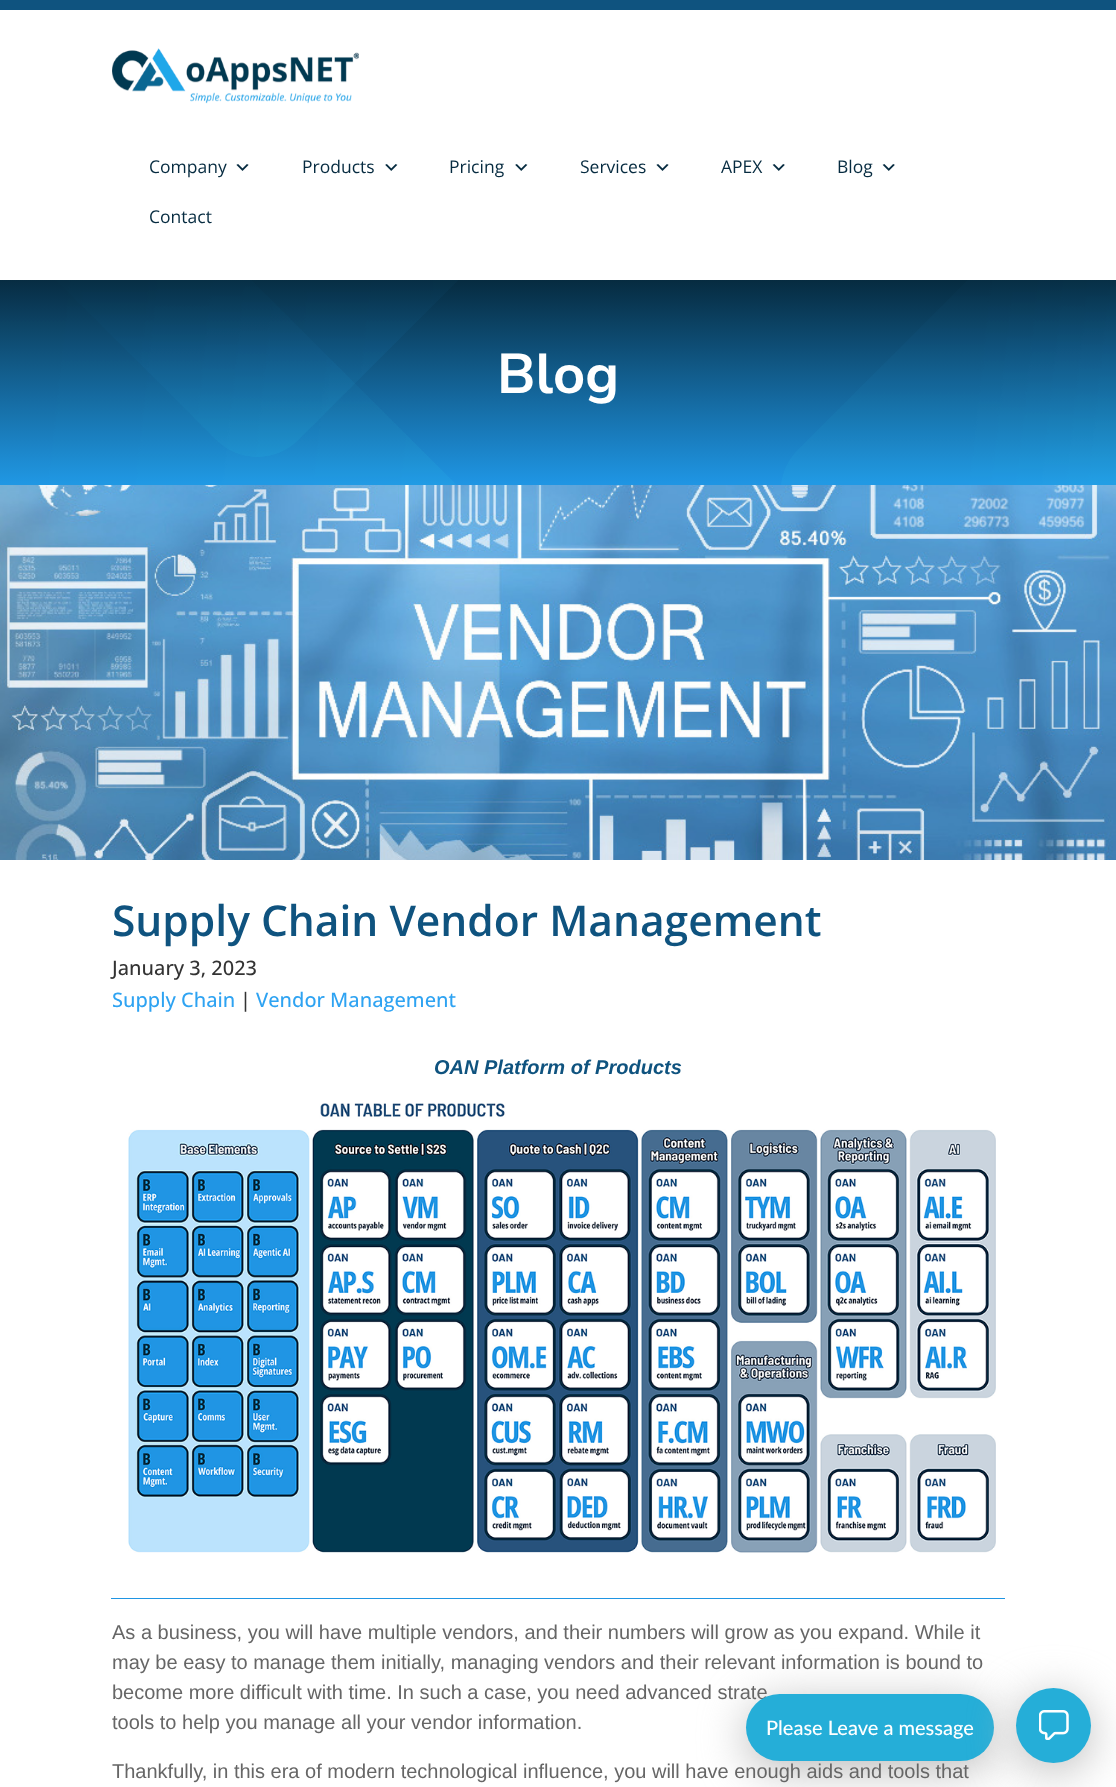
(async () => {
  const canvas = document.querySelector("canvas");
  canvas.width = 1116;
  canvas.height = 1787;
  const ctx = canvas.getContext("2d");
  ctx.miterLimit = 4;
  ctx.fontKerning = "normal";
  async function loadImage(src) {
    const img = new Image();
    img.src = src;
    await img.decode();
    return img;
  }

  ctx.fillStyle = "#ffffff";
  ctx.fillRect(0, 0, 1116, 1787);
  ctx.fillStyle = "#0f537f";
  ctx.fillRect(0, 0, 1116, 10);
  ctx.drawImage(await loadImage("img/1.png"), 112, 48, 247, 56);
  ctx.drawImage(await loadImage("img/2.png"), 236, 164, 13, 7);
  ctx.drawImage(await loadImage("img/3.png"), 385, 164, 13, 7);
  ctx.drawImage(await loadImage("img/3.png"), 515, 164, 13, 7);
  ctx.drawImage(await loadImage("img/2.png"), 656, 164, 13, 7);
  ctx.drawImage(await loadImage("img/4.png"), 772, 164, 13, 7);
  ctx.drawImage(await loadImage("img/4.png"), 882, 164, 13, 7);
  ctx.drawImage(await loadImage("img/5.png"), 0, 280, 1116, 205);
  ctx.drawImage(await loadImage("img/6.png"), 0, 485, 1116, 375);
  ctx.drawImage(await loadImage("img/7.png"), 128, 1103, 868, 450);
  ctx.fillStyle = "#1f95e3";
  ctx.fillRect(111, 1598, 894, 1);
  ctx.fillStyle = "#bbbbbb";
  ctx.filter = "blur(23px)";
  ctx.beginPath();
  ctx.roundRect(746, 1703, 248, 67, 33.5);
  ctx.fill();
  ctx.filter = "none";
  ctx.font = "17.5px Open Sans";
  ctx.fillStyle = "#062b40";
  for (const [text, x, y] of [
    ["Company", 149, 173],
    ["Products", 302, 173],
    ["Pricing", 449, 173],
    ["Services", 580, 173],
    ["APEX", 721, 173],
    ["Blog", 837, 173],
    ["Contact", 149, 223],
  ]) {
    ctx.fillText(text, x, y);
  }
  ctx.font = "bold 56px Nunito Sans";
  ctx.fillStyle = "#ffffff";
  ctx.fillText("Blog", 497, 393);
  ctx.font = "600 42.5px Open Sans";
  ctx.fillStyle = "#0f537f";
  ctx.fillText("Supply Chain Vendor Management", 112, 936);
  ctx.font = "500 20px Open Sans";
  ctx.fillStyle = "#333333";
  ctx.fillText("January 3, 2023", 112, 975);
  ctx.fillStyle = "#2ea3f2";
  ctx.fillText("Supply Chain", 112, 1007);
  ctx.fillStyle = "#333333";
  ctx.fillText("|", 240, 1007);
  ctx.fillStyle = "#2ea3f2";
  ctx.fillText("Vendor Management", 256, 1007);
  ctx.font = "italic bold 20px Liberation Sans";
  ctx.fillStyle = "#0f537f";
  ctx.fillText("OAN Platform of Products", 434, 1074);
  ctx.font = "20px Liberation Sans";
  ctx.fillStyle = "#666666";
  for (const [text, x, y] of [
    ["As a business, you will have multiple vendors, and their numbers will grow as you expand. While it", 112, 1639],
    ["may be easy to manage them initially, managing vendors and their relevant information is bound to", 112, 1669],
    ["become more difficult with time. In such a case, you need advanced strate", 112, 1699],
    ["tools to help you manage all your vendor information.", 112, 1729],
    ["Thankfully, in this era of modern technological influence, you will have enough aids and tools that", 112, 1778],
  ]) {
    ctx.fillText(text, x, y);
  }
  ctx.fillStyle = "#25aed8";
  ctx.beginPath();
  ctx.roundRect(746, 1694, 248, 67, 33.5);
  ctx.fill();
  ctx.font = "500 20px Lato";
  ctx.fillStyle = "#ffffff";
  ctx.fillText("Please Leave a message", 766, 1735);
  ctx.fillStyle = "#bbbbbb";
  ctx.filter = "blur(23px)";
  ctx.beginPath();
  ctx.roundRect(1016, 1696, 75, 75, 37.5);
  ctx.fill();
  ctx.filter = "none";
  ctx.fillStyle = "#25aed8";
  ctx.beginPath();
  ctx.arc(1053.5, 1725.5, 37.5, 0, Math.PI * 2);
  ctx.fill();
  ctx.drawImage(await loadImage("img/8.png"), 1039, 1710, 30, 30);
})();
